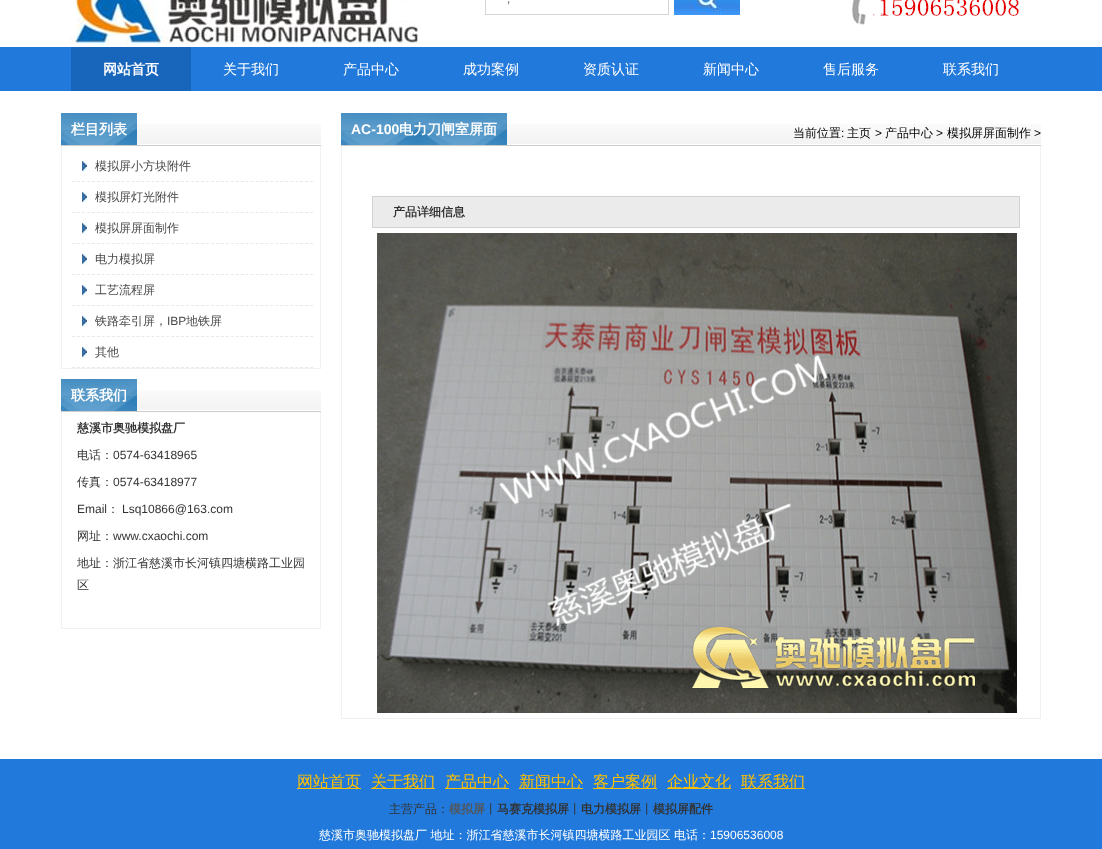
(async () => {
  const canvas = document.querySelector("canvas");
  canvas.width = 1102;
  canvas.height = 849;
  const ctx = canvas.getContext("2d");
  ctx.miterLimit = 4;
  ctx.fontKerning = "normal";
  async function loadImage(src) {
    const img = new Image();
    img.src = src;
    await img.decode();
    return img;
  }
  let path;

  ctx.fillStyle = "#ffffff";
  ctx.fillRect(0, 0, 1102, 849);
  ctx.drawImage(await loadImage("img/1.png"), 69, 0, 352, 47);
  ctx.strokeStyle = "#d5d5d5";
  ctx.strokeRect(485.5, -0.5, 183, 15);
  ctx.drawImage(await loadImage("img/2.png"), 674, 0, 66, 15);
  ctx.drawImage(await loadImage("img/3.png"), 851, 0, 168, 25);
  ctx.fillStyle = "#2179db";
  ctx.fillRect(0, 47, 1102, 44);
  ctx.fillStyle = "#1866bc";
  ctx.fillRect(71, 47, 120, 44);
  ctx.drawImage(await loadImage("img/4.png"), 61, 124, 260, 22);
  ctx.drawImage(await loadImage("img/5.png"), 61, 113, 76, 32);
  for (const [x, y, w, h, color] of [
    [320, 146, 1, 223, "#f1f1f1"],
    [61, 368, 260, 1, "#f1f1f1"],
    [61, 146, 1, 223, "#f1f1f1"],
  ]) {
    ctx.fillStyle = color;
    ctx.fillRect(x, y, w, h);
  }
  ctx.drawImage(await loadImage("img/6.png"), 82, 161, 5, 11);
  path = new Path2D("M72 181.5H313");
  ctx.strokeStyle = "#e9e9e9";
  ctx.setLineDash([3, 1.96]);
  ctx.stroke(path);
  ctx.drawImage(await loadImage("img/6.png"), 82, 192, 5, 11);
  path = new Path2D("M72 212.5H313");
  ctx.stroke(path);
  ctx.drawImage(await loadImage("img/6.png"), 82, 223, 5, 11);
  path = new Path2D("M72 243.5H313");
  ctx.stroke(path);
  ctx.drawImage(await loadImage("img/6.png"), 82, 254, 5, 11);
  path = new Path2D("M72 274.5H313");
  ctx.stroke(path);
  ctx.drawImage(await loadImage("img/6.png"), 82, 285, 5, 11);
  path = new Path2D("M72 305.5H313");
  ctx.stroke(path);
  ctx.drawImage(await loadImage("img/6.png"), 82, 316, 5, 11);
  path = new Path2D("M72 336.5H313");
  ctx.stroke(path);
  ctx.drawImage(await loadImage("img/6.png"), 82, 347, 5, 11);
  path = new Path2D("M72 367.5H313");
  ctx.stroke(path);
  ctx.drawImage(await loadImage("img/4.png"), 61, 390, 260, 22);
  ctx.drawImage(await loadImage("img/5.png"), 61, 379, 76, 32);
  for (const [x, y, w, h, color] of [
    [320, 412, 1, 217, "#f1f1f1"],
    [61, 628, 260, 1, "#f1f1f1"],
    [61, 412, 1, 217, "#f1f1f1"],
  ]) {
    ctx.fillStyle = color;
    ctx.fillRect(x, y, w, h);
  }
  ctx.drawImage(await loadImage("img/7.png"), 341, 124, 700, 22);
  ctx.drawImage(await loadImage("img/8.png"), 341, 113, 166, 32);
  for (const [x, y, w, h, color] of [
    [1040, 146, 1, 573, "#f1f1f1"],
    [341, 718, 700, 1, "#f1f1f1"],
    [341, 146, 1, 573, "#f1f1f1"],
  ]) {
    ctx.fillStyle = color;
    ctx.fillRect(x, y, w, h);
  }
  ctx.fillStyle = "#ebebeb";
  ctx.beginPath();
  ctx.rect(372.5, 196.5, 647, 31);
  ctx.fill();
  ctx.strokeStyle = "#d2d2d2";
  ctx.setLineDash([]);
  ctx.stroke();
  ctx.drawImage(await loadImage("img/9.png"), 377, 233, 640, 480);
  for (const [x, y, w, h, color] of [
    [0, 759, 1102, 90, "#2179db"],
    [297, 788, 64, 1, "#ffc000"],
    [371, 788, 64, 1, "#ffc000"],
    [445, 788, 64, 1, "#ffc000"],
    [519, 788, 64, 1, "#ffc000"],
    [593, 788, 64, 1, "#ffc000"],
    [667, 788, 64, 1, "#ffc000"],
    [741, 788, 64, 1, "#ffc000"],
  ]) {
    ctx.fillStyle = color;
    ctx.fillRect(x, y, w, h);
  }
  ctx.font = "500 13px WenQuanYi Zen Hei";
  ctx.fillStyle = "#757575";
  ctx.fillText("，", 502, 3);
  ctx.font = "bold 14px WenQuanYi Zen Hei";
  ctx.fillStyle = "#ffffff";
  ctx.fillText("网站首页", 103, 74);
  ctx.font = "500 14px WenQuanYi Zen Hei";
  for (const [text, x, y] of [
    ["关于我们", 223, 74],
    ["产品中心", 343, 74],
    ["成功案例", 463, 74],
    ["资质认证", 583, 74],
    ["新闻中心", 703, 74],
    ["售后服务", 823, 74],
    ["联系我们", 943, 74],
  ]) {
    ctx.fillText(text, x, y);
  }
  ctx.font = "bold 14px WenQuanYi Zen Hei";
  ctx.fillText("栏目列表", 71, 134);
  ctx.font = "500 12px WenQuanYi Zen Hei";
  ctx.fillStyle = "#4a4a4a";
  for (const [text, x, y] of [
    ["模拟屏小方块附件", 95, 170],
    ["模拟屏灯光附件", 95, 201],
    ["模拟屏屏面制作", 95, 232],
    ["电力模拟屏", 95, 263],
    ["工艺流程屏", 95, 294],
    ["铁路牵引屏，", 95, 325],
  ]) {
    ctx.fillText(text, x, y);
  }
  ctx.font = "12px Liberation Sans";
  ctx.fillText("IBP", 167, 325);
  ctx.font = "500 12px WenQuanYi Zen Hei";
  ctx.fillText("地铁屏", 186, 325);
  ctx.fillText("其他", 95, 356);
  ctx.font = "bold 14px WenQuanYi Zen Hei";
  ctx.fillStyle = "#ffffff";
  ctx.fillText("联系我们", 71, 400);
  ctx.font = "bold 12px WenQuanYi Zen Hei";
  ctx.fillStyle = "#333333";
  ctx.fillText("慈溪市奥驰模拟盘厂", 77, 432);
  ctx.font = "500 12px WenQuanYi Zen Hei";
  ctx.fillText("电话：", 77, 459);
  ctx.font = "12px Liberation Sans";
  ctx.fillText("0574-63418965", 113, 459);
  ctx.font = "500 12px WenQuanYi Zen Hei";
  ctx.fillText("传真：", 77, 486);
  ctx.font = "12px Liberation Sans";
  ctx.fillText("0574-63418977", 113, 486);
  ctx.fillText("Email", 77, 513);
  ctx.font = "500 12px WenQuanYi Zen Hei";
  ctx.fillText("：", 107, 513);
  ctx.font = "12px Liberation Sans";
  ctx.fillText("Lsq10866@163.com", 122, 513);
  ctx.font = "500 12px WenQuanYi Zen Hei";
  ctx.fillText("网址：", 77, 540);
  ctx.font = "12px Liberation Sans";
  ctx.fillText("www.cxaochi.com", 113, 540);
  ctx.font = "500 12px WenQuanYi Zen Hei";
  ctx.fillText("地址：浙江省慈溪市长河镇四塘横路工业园", 77, 567);
  ctx.fillText("区", 77, 589);
  ctx.font = "bold 14px Liberation Sans";
  ctx.fillStyle = "#ffffff";
  ctx.fillText("AC-100", 351, 134);
  ctx.font = "bold 14px WenQuanYi Zen Hei";
  ctx.fillText("电力刀闸室屏面", 399, 134);
  ctx.font = "500 12px WenQuanYi Zen Hei";
  ctx.fillStyle = "#000000";
  ctx.fillText("当前位置", 793, 137);
  ctx.font = "12px Liberation Sans";
  ctx.fillText(":", 841, 137);
  ctx.font = "500 12px WenQuanYi Zen Hei";
  ctx.fillText("主页", 847, 137);
  ctx.font = "12px Liberation Sans";
  ctx.fillText(">", 875, 137);
  ctx.font = "500 12px WenQuanYi Zen Hei";
  ctx.fillText("产品中心", 885, 137);
  ctx.font = "12px Liberation Sans";
  ctx.fillText(">", 936, 137);
  ctx.font = "500 12px WenQuanYi Zen Hei";
  ctx.fillText("模拟屏屏面制作", 947, 137);
  ctx.font = "12px Liberation Sans";
  ctx.fillText(">", 1034, 137);
  ctx.font = "bold 12px WenQuanYi Zen Hei";
  ctx.fillStyle = "#333333";
  ctx.fillText("产品详细信息", 393, 216);
  ctx.font = "500 16px WenQuanYi Zen Hei";
  ctx.fillStyle = "#ffc000";
  for (const [text, x, y] of [
    ["网站首页", 297, 787],
    ["关于我们", 371, 787],
    ["产品中心", 445, 787],
    ["新闻中心", 519, 787],
    ["客户案例", 593, 787],
    ["企业文化", 667, 787],
    ["联系我们", 741, 787],
  ]) {
    ctx.fillText(text, x, y);
  }
  ctx.font = "500 12px WenQuanYi Zen Hei";
  ctx.fillStyle = "#333333";
  ctx.fillText("主营产品：", 389, 813);
  ctx.font = "bold 12px WenQuanYi Zen Hei";
  ctx.fillStyle = "#555555";
  ctx.fillText("模拟屏", 449, 813);
  ctx.font = "500 12px WenQuanYi Zen Hei";
  ctx.fillStyle = "#333333";
  ctx.fillText("丨", 485, 813);
  ctx.font = "bold 12px WenQuanYi Zen Hei";
  ctx.fillText("马赛克模拟屏", 497, 813);
  ctx.font = "500 12px WenQuanYi Zen Hei";
  ctx.fillText("丨", 569, 813);
  ctx.font = "bold 12px WenQuanYi Zen Hei";
  ctx.fillText("电力模拟屏", 581, 813);
  ctx.font = "500 12px WenQuanYi Zen Hei";
  ctx.fillText("丨", 641, 813);
  ctx.font = "bold 12px WenQuanYi Zen Hei";
  ctx.fillText("模拟屏配件", 653, 813);
  ctx.font = "500 12px WenQuanYi Zen Hei";
  ctx.fillStyle = "#ffffff";
  ctx.fillText("慈溪市奥驰模拟盘厂 地址：浙江省慈溪市长河镇四塘横路工业园区", 319, 839);
  ctx.fillText("电话：", 674, 839);
  ctx.font = "12px Liberation Sans";
  ctx.fillText("15906536008", 710, 839);
})();
